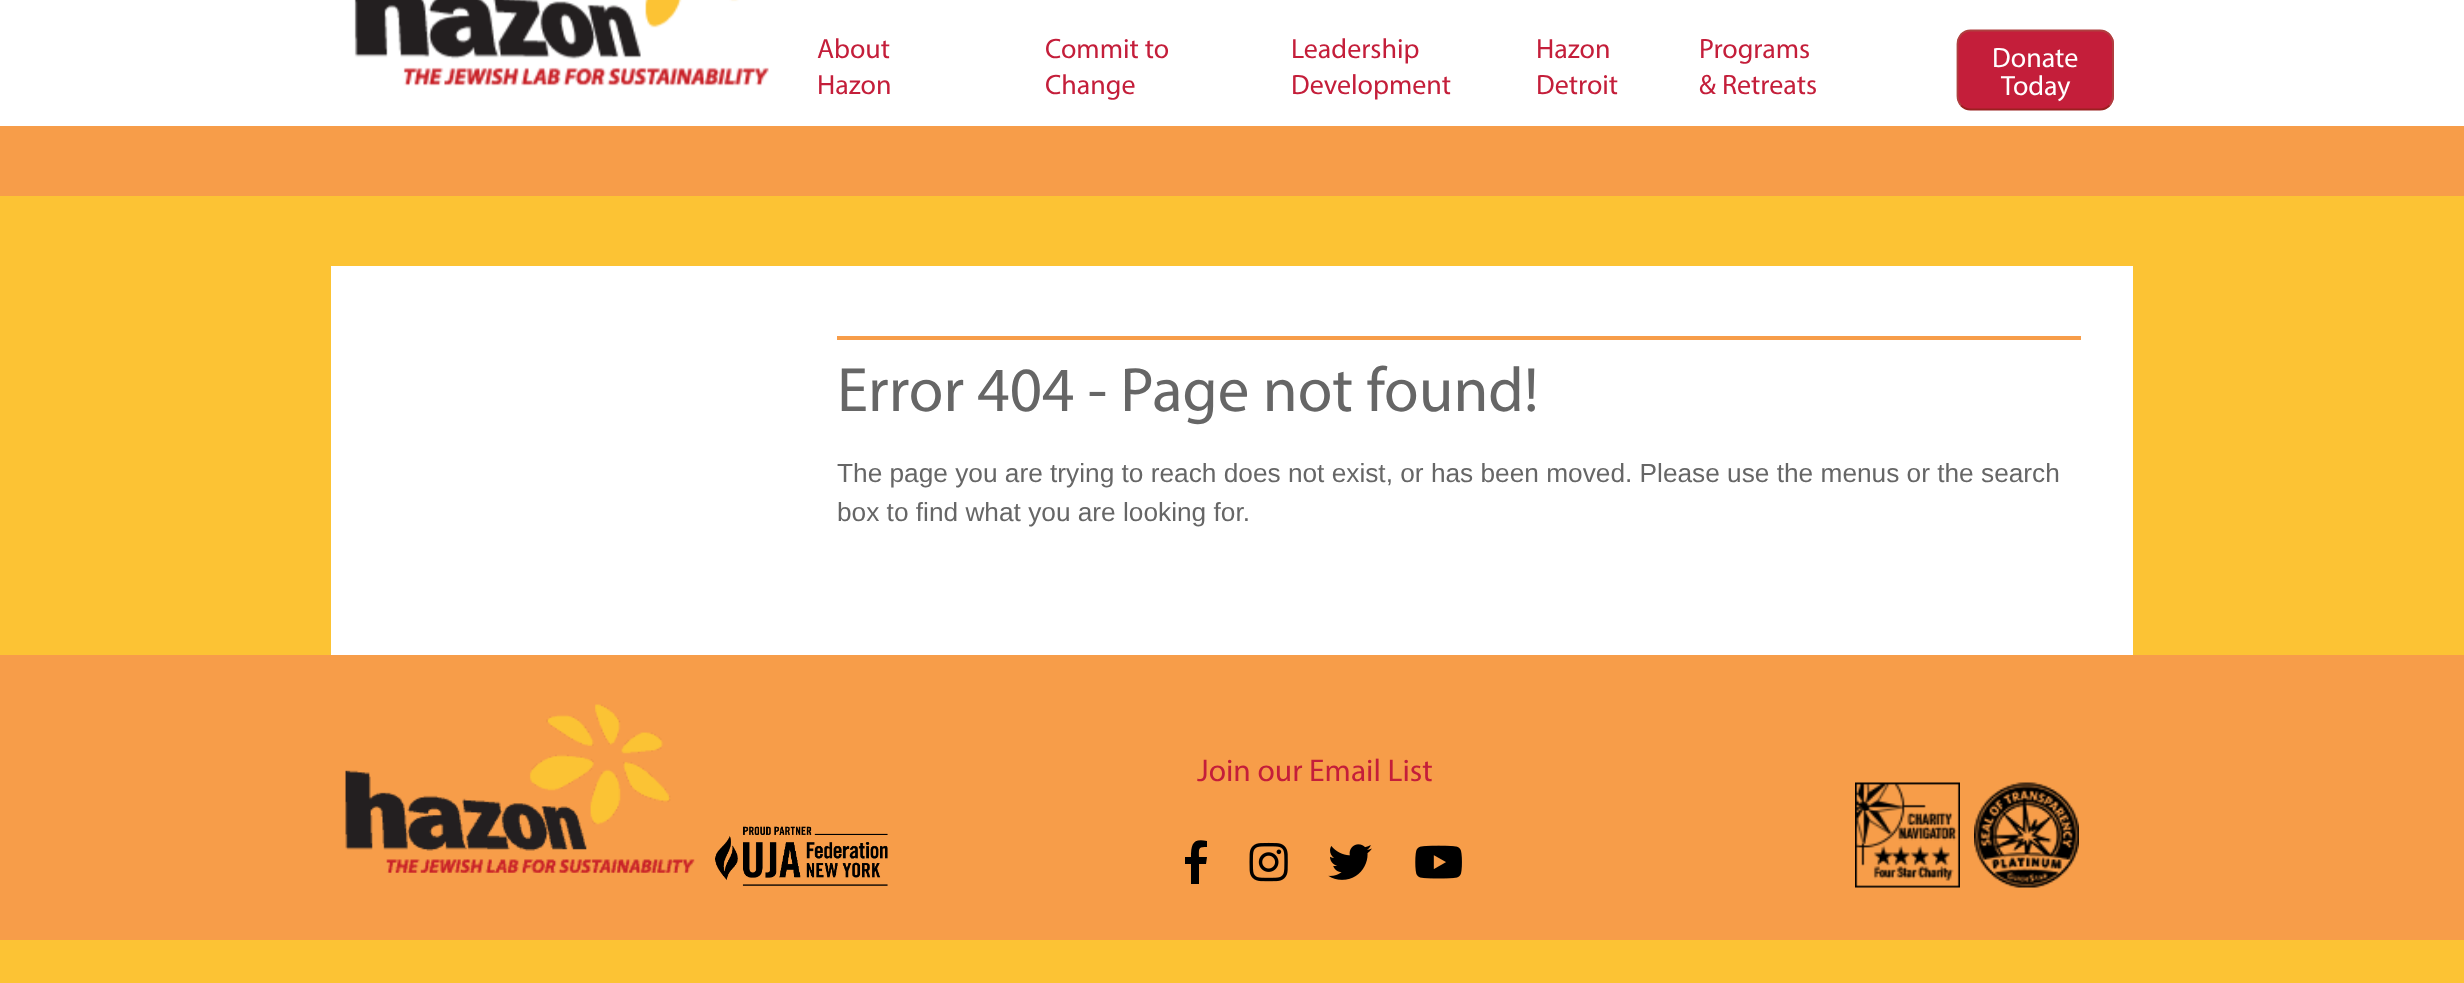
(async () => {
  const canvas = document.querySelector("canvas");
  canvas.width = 2464;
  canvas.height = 983;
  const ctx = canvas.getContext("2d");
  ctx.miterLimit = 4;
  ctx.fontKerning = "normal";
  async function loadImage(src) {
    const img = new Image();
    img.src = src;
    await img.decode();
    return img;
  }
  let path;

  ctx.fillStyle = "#fcc334";
  ctx.fillRect(0, 0, 2464, 983);
  ctx.fillStyle = "#ffffff";
  ctx.fillRect(0, 0, 2464, 126);
  ctx.drawImage(await loadImage("img/1.png"), 354, 0, 415, 86);
  ctx.fillStyle = "#c41e3a";
  ctx.beginPath();
  ctx.roundRect(1957, 30, 157, 80, 14);
  ctx.fill();
  path = new Path2D("M2109.5 105.5C2107 108 2103.5 109.5 2100 109.5H1970.5C1967 109.5 1963.5 108 1961 105.5");
  ctx.strokeStyle = "#9a2020";
  ctx.lineWidth = 1.8;
  ctx.stroke(path);
  path = new Path2D("M1961 105.5C1959 103 1957.5 99.5 1957.5 96V44C1957.5 40.5 1959 37 1961 34.5C1963.5 32 1967 30.5 1970.5 30.5H2100C2103.5 30.5 2107 32 2109.5 34.5C2111.5 37 2113 40.5 2113 43.5V96C2113 99.5 2111.5 103 2109.5 105.5");
  ctx.strokeStyle = "#af4040";
  ctx.stroke(path);
  for (const [x, y, w, h, color] of [
    [0, 126, 2464, 70, "#f79d49"],
    [331, 266, 1802, 389, "#ffffff"],
    [837, 336, 1244, 4, "#f79d49"],
    [0, 655, 2464, 285, "#f79d49"],
  ]) {
    ctx.fillStyle = color;
    ctx.fillRect(x, y, w, h);
  }
  ctx.drawImage(await loadImage("img/2.png"), 345, 704, 350, 169);
  ctx.drawImage(await loadImage("img/3.png"), 715, 826, 173, 60);
  ctx.fillStyle = "#000000";
  path = new Path2D("M1191 884V864H1185V857H1191C1191 844 1193 838 1207 841V847C1198 847 1199 848 1199 857H1207L1206 864H1199V884Z");
  ctx.fill(path);
  ctx.drawImage(await loadImage("img/4.png"), 1249, 842, 39, 40);
  ctx.drawImage(await loadImage("img/5.png"), 1328, 844, 44, 36);
  ctx.drawImage(await loadImage("img/6.png"), 1415, 845, 47, 34);
  ctx.drawImage(await loadImage("img/7.png"), 1855, 782, 105, 106);
  ctx.drawImage(await loadImage("img/8.png"), 1974, 782, 105, 106);
  ctx.font = "28px Myriad";
  ctx.fillStyle = "#c41e3a";
  for (const [text, x, y] of [
    ["About", 817, 58],
    ["Hazon", 817, 94],
    ["Commit to", 1045, 58],
    ["Change", 1045, 94],
    ["Leadership", 1291, 58],
    ["Development", 1291, 94],
    ["Hazon", 1536, 58],
    ["Detroit", 1536, 94],
    ["Programs", 1699, 58],
    ["& Retreats", 1699, 94],
  ]) {
    ctx.fillText(text, x, y);
  }
  ctx.fillStyle = "#ffffff";
  ctx.fillText("Donate", 1992, 67);
  ctx.fillText("Today", 2001, 95);
  ctx.font = "63px Myriad";
  ctx.fillStyle = "#666666";
  ctx.fillText("Error 404 - Page not found!", 837, 411);
  ctx.font = "26.25px Liberation Sans";
  ctx.fillText("The page you are trying to reach does not exist, or has been moved. Please use the menus or the search", 837, 482);
  ctx.fillText("box to find what you are looking for.", 837, 521);
  ctx.font = "31.5px Myriad";
  ctx.fillStyle = "#c41e3a";
  ctx.fillText("Join our Email List", 1197, 781);
})();
